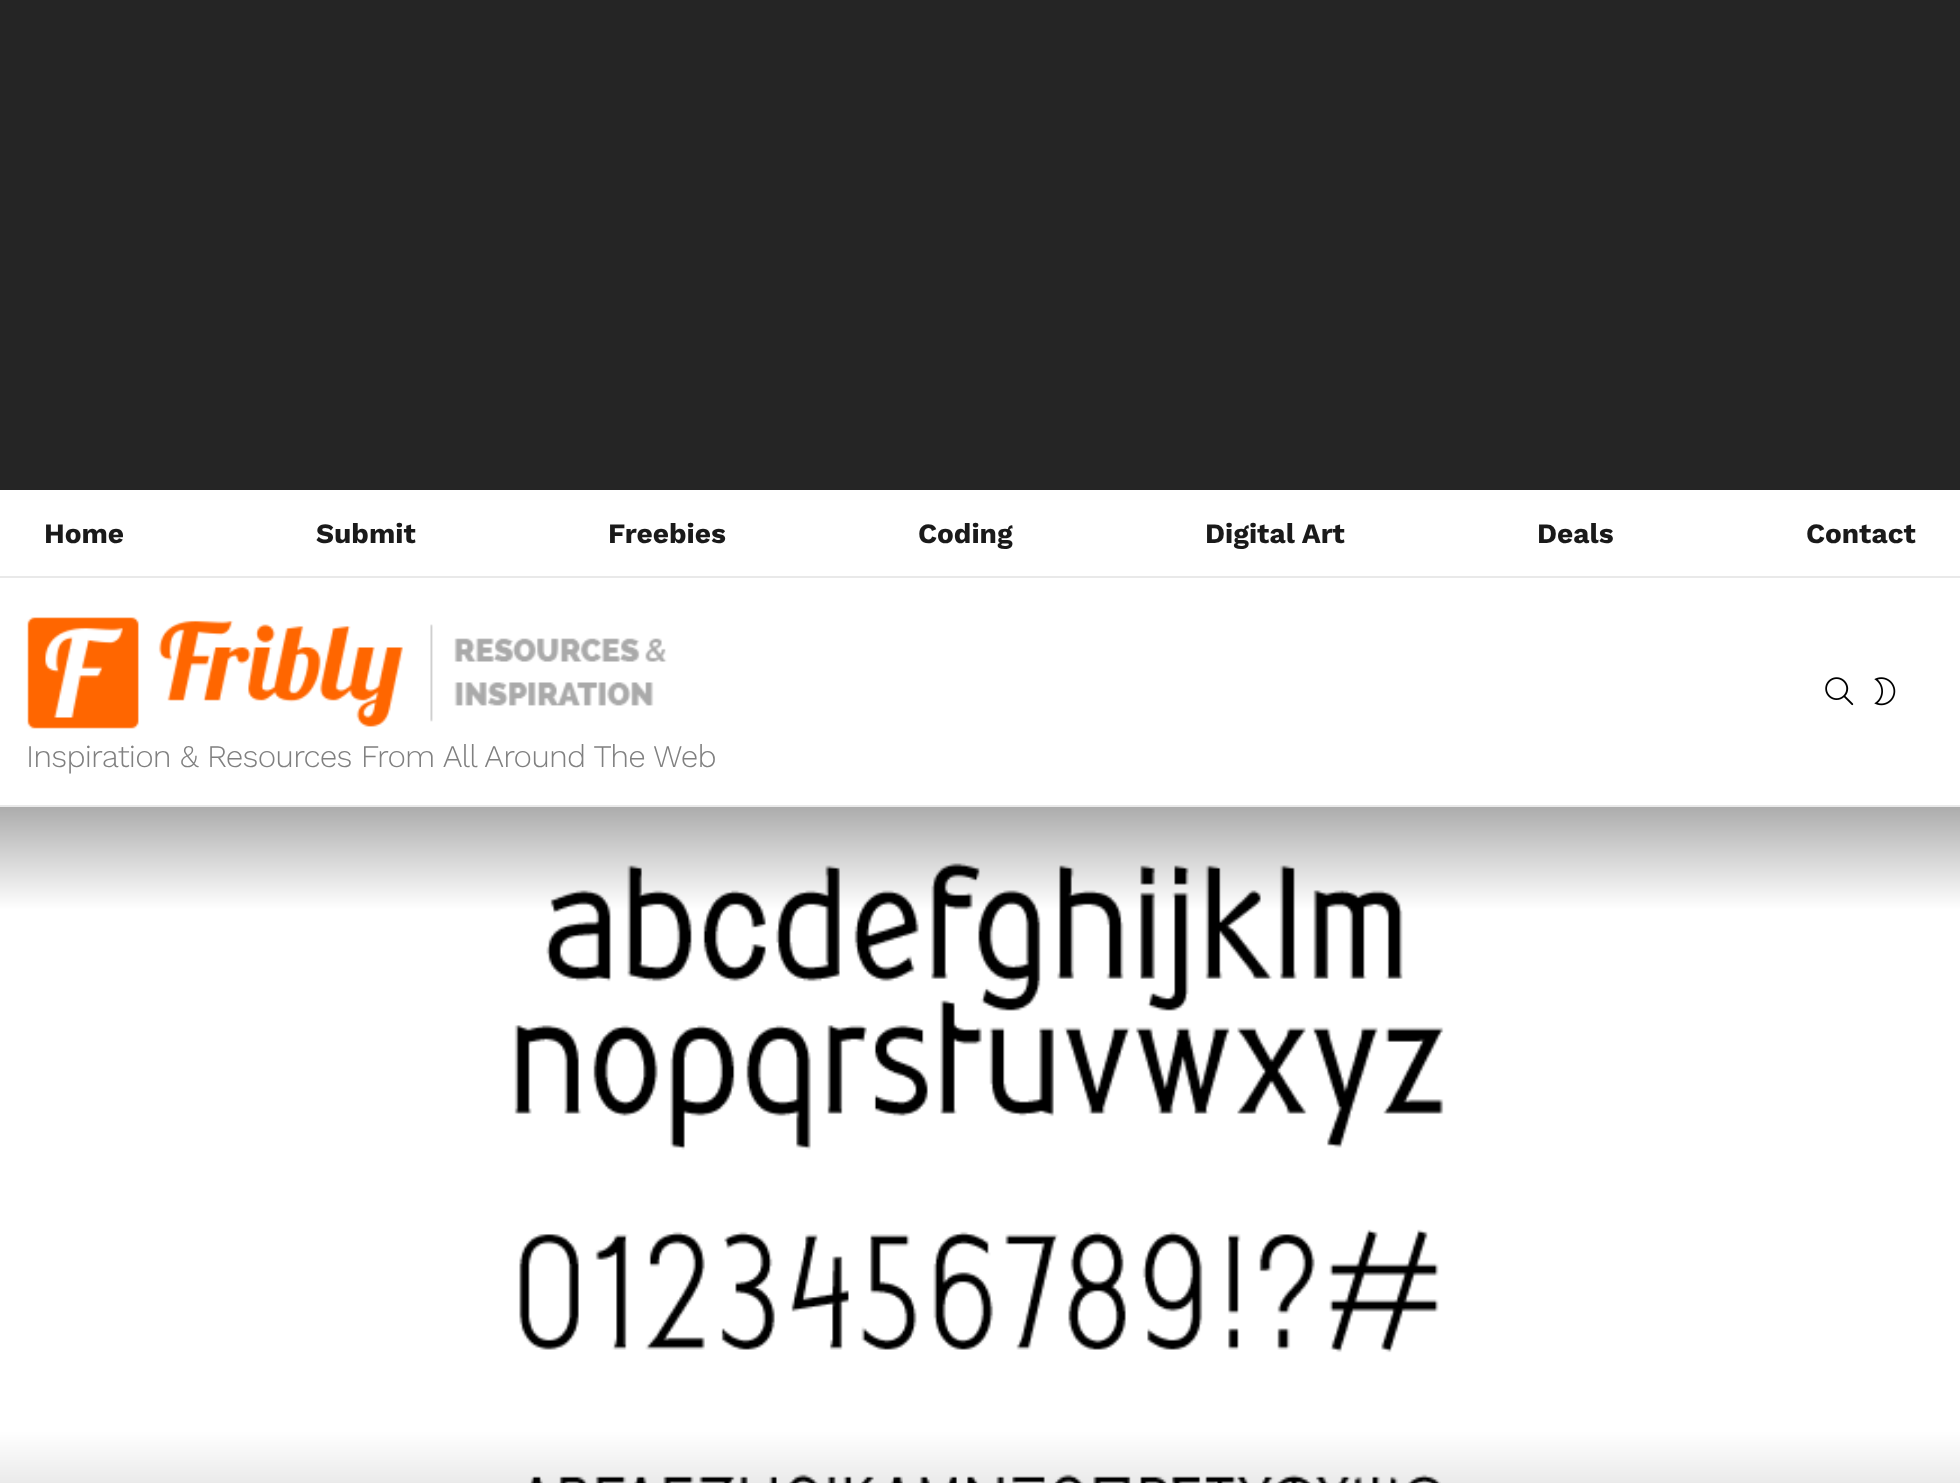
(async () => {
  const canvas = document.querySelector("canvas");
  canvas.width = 1960;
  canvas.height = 1483;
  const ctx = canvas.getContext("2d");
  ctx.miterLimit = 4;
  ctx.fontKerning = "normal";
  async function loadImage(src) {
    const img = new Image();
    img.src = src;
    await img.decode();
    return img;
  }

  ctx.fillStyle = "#ffffff";
  ctx.fillRect(0, 0, 1960, 1483);
  ctx.fillStyle = "#252525";
  ctx.fillRect(0, 0, 1960, 490);
  ctx.fillStyle = "#e9e9e9";
  ctx.fillRect(0, 576, 1960, 2);
  ctx.drawImage(await loadImage("img/1.png"), 1825, 677, 29, 29);
  ctx.drawImage(await loadImage("img/2.png"), 1874, 677, 22, 29);
  ctx.drawImage(await loadImage("img/3.png"), 27, 617, 640, 112);
  ctx.fillRect(0, 805, 1960, 2);
  ctx.drawImage(await loadImage("img/4.png"), 0, 807, 1960, 676);
  ctx.font = "bold 28px Work Sans";
  ctx.fillStyle = "#1a1a1a";
  for (const [text, x, y] of [
    ["Home", 44, 543],
    ["Submit", 316, 543],
    ["Freebies", 608, 543],
    ["Coding", 918, 543],
    ["Digital Art", 1205, 543],
    ["Deals", 1537, 543],
    ["Contact", 1806, 543],
  ]) {
    ctx.fillText(text, x, y);
  }
  ctx.letterSpacing = "-0.8px";
  ctx.font = "300 31.5px Work Sans";
  ctx.fillStyle = "#808080";
  ctx.fillText("Inspiration & Resources From All Around The Web", 26, 767);
})();
